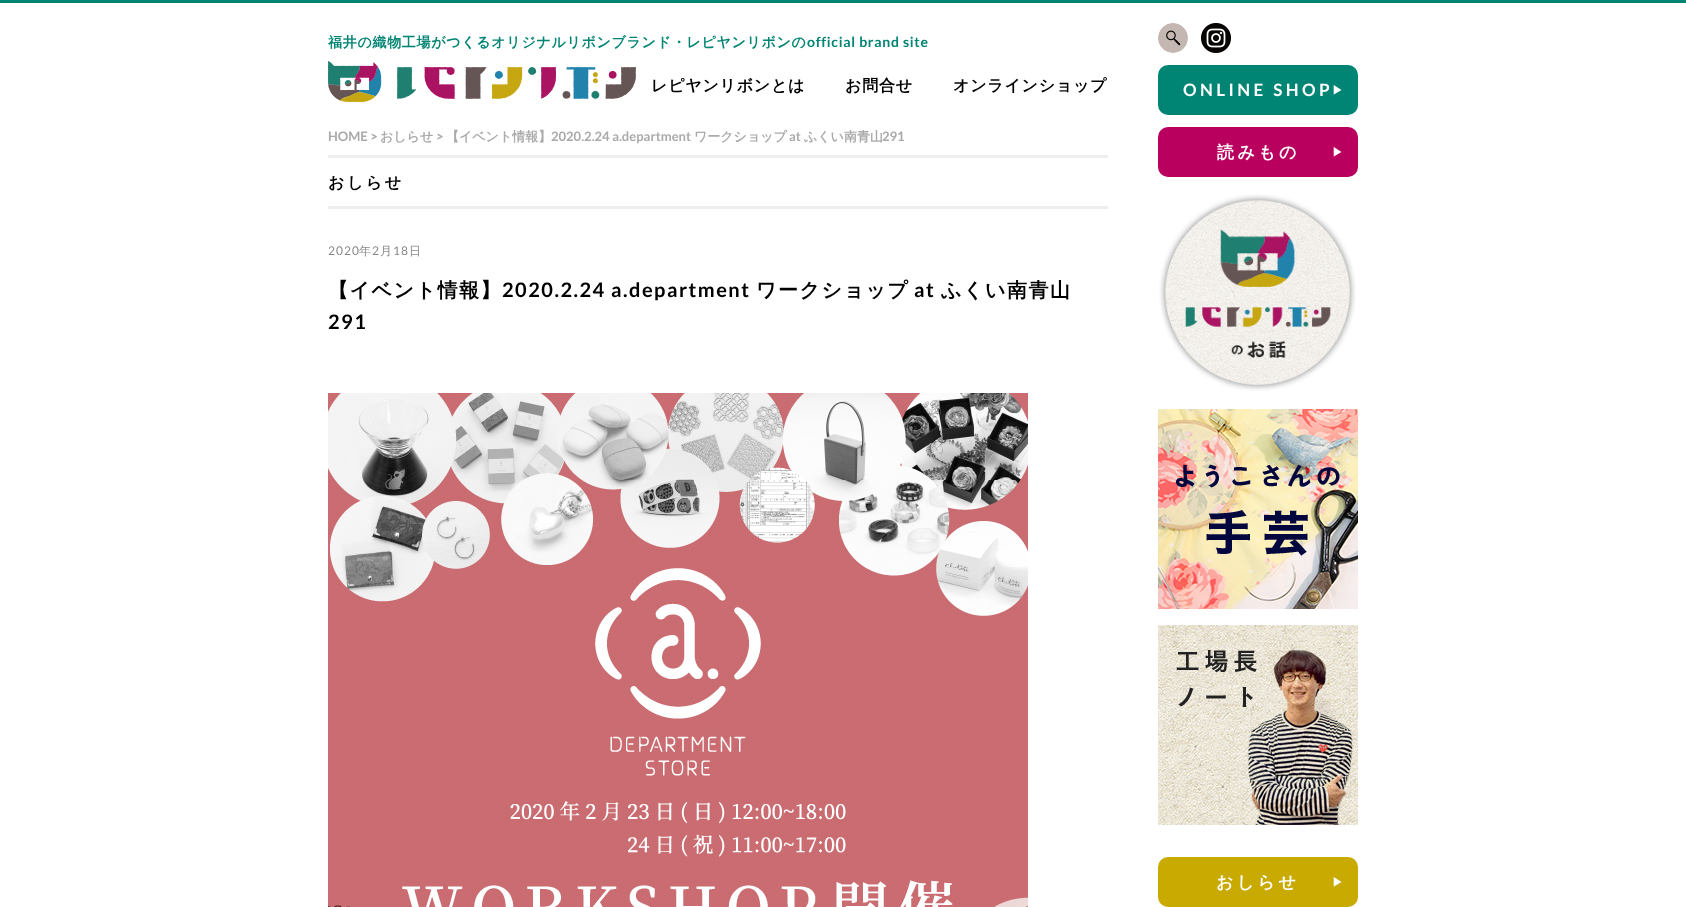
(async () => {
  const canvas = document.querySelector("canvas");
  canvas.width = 1686;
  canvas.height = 907;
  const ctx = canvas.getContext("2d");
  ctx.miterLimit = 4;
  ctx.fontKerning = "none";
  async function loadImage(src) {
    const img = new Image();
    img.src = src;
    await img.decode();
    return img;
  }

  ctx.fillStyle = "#ffffff";
  ctx.fillRect(0, 0, 1686, 907);
  ctx.fillStyle = "#008473";
  ctx.fillRect(0, 0, 1686, 3);
  ctx.drawImage(await loadImage("img/1.png"), 328, 61, 308, 41);
  ctx.fillStyle = "#eeeeee";
  ctx.fillRect(328, 155, 780, 3);
  ctx.fillRect(328, 206, 780, 3);
  ctx.drawImage(await loadImage("img/2.png"), 328, 393, 700, 514);
  ctx.drawImage(await loadImage("img/3.png"), 1158, 23, 30, 30);
  ctx.drawImage(await loadImage("img/4.png"), 1201, 23, 30, 30);
  ctx.fillStyle = "#008473";
  ctx.beginPath();
  ctx.roundRect(1158, 65, 200, 50, 10);
  ctx.fill();
  ctx.fillStyle = "#b9005e";
  ctx.beginPath();
  ctx.roundRect(1158, 127, 200, 50, 10);
  ctx.fill();
  ctx.drawImage(await loadImage("img/5.png"), 1159, 194, 197, 197);
  ctx.drawImage(await loadImage("img/6.png"), 1158, 409, 200, 200);
  ctx.drawImage(await loadImage("img/7.png"), 1158, 625, 200, 200);
  ctx.fillStyle = "#c8aa00";
  ctx.beginPath();
  ctx.roundRect(1158, 857, 200, 50, 10);
  ctx.fill();
  ctx.letterSpacing = "0.7px";
  ctx.font = "bold 14px WenQuanYi Zen Hei";
  ctx.fillStyle = "#008473";
  ctx.fillText("福井の織物工場がつくるオリジナルリボンブランド・レピヤンリボンの", 328, 47);
  ctx.font = "bold 14px Lato";
  ctx.fillText("official brand site", 807, 47);
  ctx.letterSpacing = "0.75px";
  ctx.font = "bold 16px WenQuanYi Zen Hei";
  ctx.fillStyle = "#000000";
  for (const [text, x, y] of [
    ["レピヤンリボンとは", 651, 91],
    ["お問合せ", 845, 91],
    ["オンラインショップ", 953, 91],
  ]) {
    ctx.fillText(text, x, y);
  }
  ctx.letterSpacing = "0px";
  ctx.font = "bold 13px Lato";
  ctx.fillStyle = "#aaaaaa";
  ctx.fillText("HOME >", 328, 141);
  ctx.font = "bold 13px WenQuanYi Zen Hei";
  ctx.fillText("おしらせ", 380, 141);
  ctx.font = "bold 13px Lato";
  ctx.fillText(">", 436, 141);
  ctx.font = "bold 13px WenQuanYi Zen Hei";
  ctx.fillText("【イベント情報】", 446, 141);
  ctx.font = "bold 13px Lato";
  ctx.fillText("2020.2.24 a.department", 551, 141);
  ctx.font = "bold 13px WenQuanYi Zen Hei";
  ctx.fillText("ワークショップ", 694, 141);
  ctx.font = "bold 13px Lato";
  ctx.fillText("at", 789, 141);
  ctx.font = "bold 13px WenQuanYi Zen Hei";
  ctx.fillText("ふくい南青山", 804, 141);
  ctx.font = "bold 13px Lato";
  ctx.fillText("291", 882, 141);
  ctx.letterSpacing = "2.5px";
  ctx.font = "bold 16px WenQuanYi Zen Hei";
  ctx.fillStyle = "#000000";
  ctx.fillText("おしらせ", 328, 188);
  ctx.letterSpacing = "1px";
  ctx.font = "12px Lato";
  ctx.fillStyle = "#888888";
  ctx.fillText("2020", 328, 255);
  ctx.font = "500 12px WenQuanYi Zen Hei";
  ctx.fillText("年", 359, 255);
  ctx.font = "12px Lato";
  ctx.fillText("2", 372, 255);
  ctx.font = "500 12px WenQuanYi Zen Hei";
  ctx.fillText("月", 380, 255);
  ctx.font = "12px Lato";
  ctx.fillText("18", 393, 255);
  ctx.font = "500 12px WenQuanYi Zen Hei";
  ctx.fillText("日", 409, 255);
  ctx.letterSpacing = "1.5px";
  ctx.font = "bold 20px WenQuanYi Zen Hei";
  ctx.fillStyle = "#000000";
  ctx.fillText("【イベント情報】", 328, 297);
  ctx.font = "bold 20px Lato";
  ctx.fillText("2020.2.24 a.department", 502, 297);
  ctx.font = "bold 20px WenQuanYi Zen Hei";
  ctx.fillText("ワークショップ", 756, 297);
  ctx.font = "bold 20px Lato";
  ctx.fillText("at", 914, 297);
  ctx.font = "bold 20px WenQuanYi Zen Hei";
  ctx.fillText("ふくい南青山", 941, 297);
  ctx.font = "bold 20px Lato";
  ctx.fillText("291", 328, 329);
  ctx.letterSpacing = "3.4px";
  ctx.font = "bold 17px Lato";
  ctx.fillStyle = "#ffffff";
  ctx.fillText("ONLINE SHOP", 1183, 96);
  ctx.font = "bold 11px WenQuanYi Zen Hei";
  ctx.fillText("▶︎", 1332, 94);
  ctx.font = "bold 17px WenQuanYi Zen Hei";
  ctx.fillText("読みもの", 1217, 158);
  ctx.font = "bold 11px WenQuanYi Zen Hei";
  ctx.fillText("▶︎", 1332, 156);
  ctx.font = "bold 17px WenQuanYi Zen Hei";
  ctx.fillText("おしらせ", 1216, 888);
  ctx.font = "bold 11px WenQuanYi Zen Hei";
  ctx.fillText("▶︎", 1332, 886);
})();
